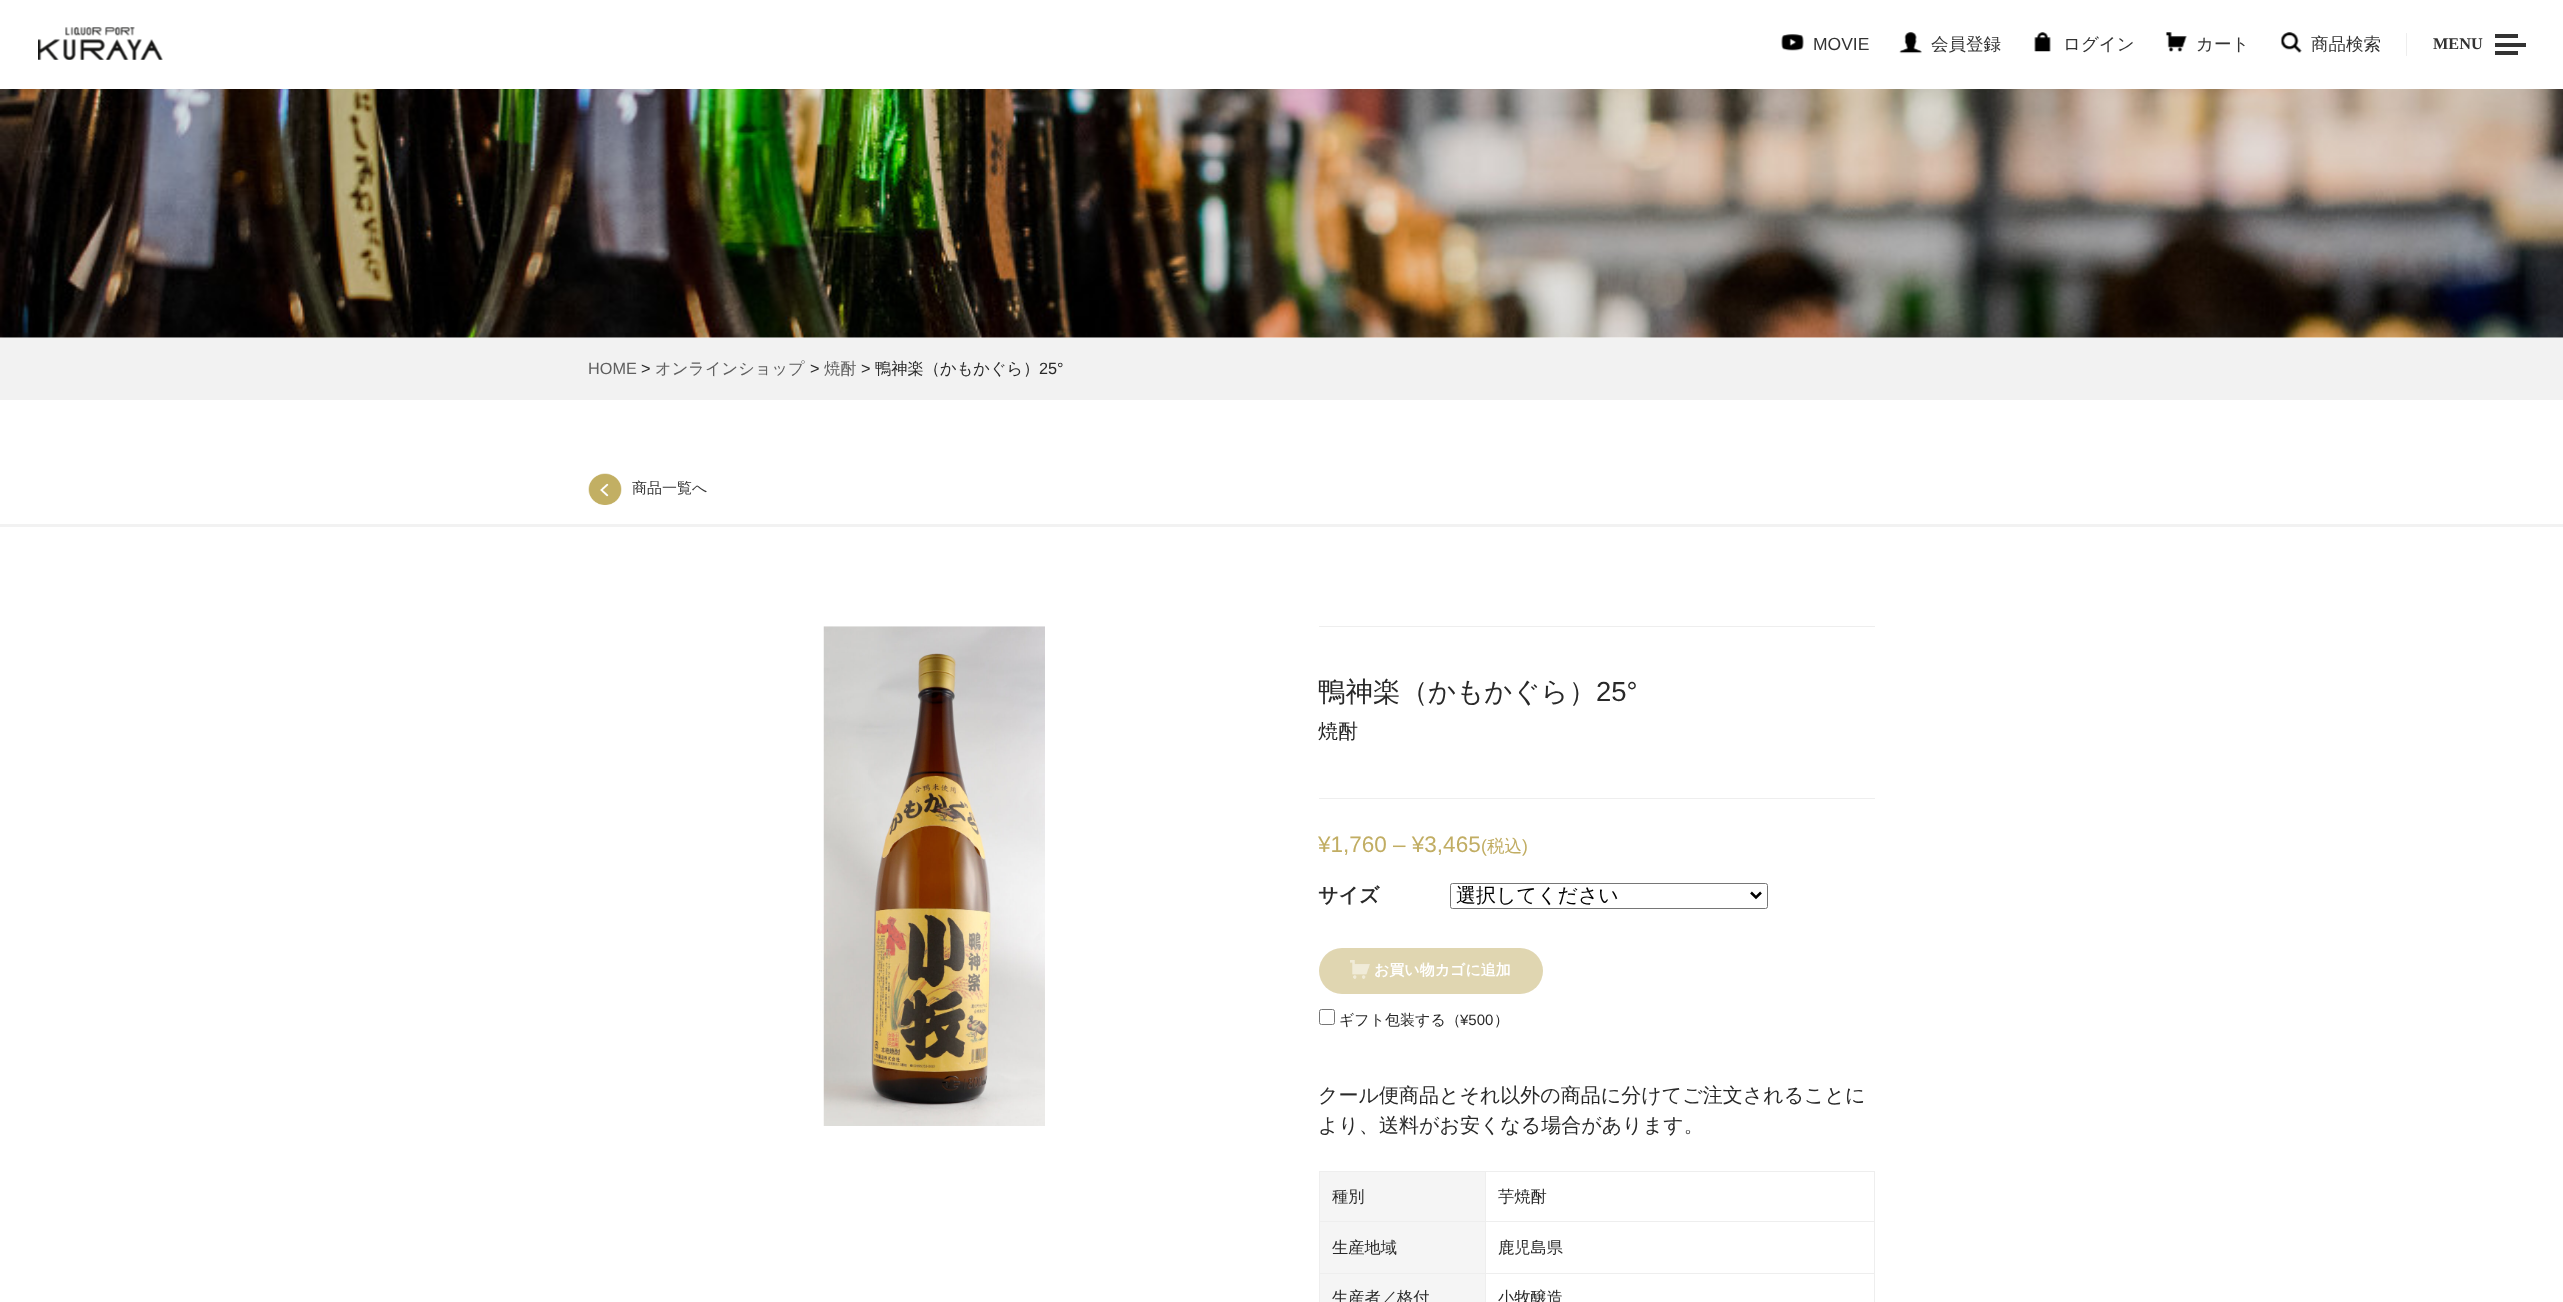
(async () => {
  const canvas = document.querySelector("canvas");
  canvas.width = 2563;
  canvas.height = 1302;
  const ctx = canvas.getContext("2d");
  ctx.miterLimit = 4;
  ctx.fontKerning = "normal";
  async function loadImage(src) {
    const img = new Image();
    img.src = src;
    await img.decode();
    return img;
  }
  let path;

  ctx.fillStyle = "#ffffff";
  ctx.fillRect(0, 0, 2563, 1302);
  ctx.drawImage(await loadImage("img/1.png"), 38, 27, 125, 33);
  ctx.drawImage(await loadImage("img/2.png"), 1781, 34, 23, 17);
  ctx.drawImage(await loadImage("img/3.png"), 1899, 32, 23, 22);
  ctx.drawImage(await loadImage("img/4.png"), 2034, 32, 17, 20);
  ctx.drawImage(await loadImage("img/5.png"), 2165, 32, 22, 20);
  ctx.drawImage(await loadImage("img/6.png"), 2280, 32, 22, 21);
  for (const [x, y, w, h, color] of [
    [2406, 33, 1, 23, "#eeeeee"],
    [2495, 34, 23, 4, "#333333"],
    [2495, 43, 31, 4, "#333333"],
    [2495, 51, 23, 4, "#333333"],
  ]) {
    ctx.fillStyle = color;
    ctx.fillRect(x, y, w, h);
  }
  ctx.drawImage(await loadImage("img/7.png"), 0, 89, 2563, 249);
  ctx.fillStyle = "#f2f2f2";
  ctx.fillRect(0, 338, 2563, 62);
  ctx.drawImage(await loadImage("img/8.png"), 588, 473, 34, 32);
  ctx.fillRect(0, 524, 2563, 3);
  ctx.drawImage(await loadImage("img/9.png"), 823, 626, 222, 500);
  ctx.fillStyle = "#eeeeee";
  ctx.fillRect(1319, 626, 556, 1);
  ctx.fillRect(1319, 798, 556, 1);
  ctx.beginPath();
  ctx.roundRect(1450.5, 883.5, 317, 25, 2);
  ctx.strokeStyle = "#767676";
  ctx.stroke();
  path = new Path2D("M1751 892.5L1756 897.5L1761 892.5");
  ctx.strokeStyle = "#000000";
  ctx.lineWidth = 2.5;
  ctx.stroke(path);
  ctx.fillStyle = "#e0d6b1";
  ctx.beginPath();
  ctx.roundRect(1319, 948, 224, 46, 23);
  ctx.fill();
  ctx.drawImage(await loadImage("img/10.png"), 1350, 960, 20, 19);
  ctx.beginPath();
  ctx.roundRect(1319.5, 1009.5, 15, 15, 2);
  ctx.strokeStyle = "#767676";
  ctx.lineWidth = 1;
  ctx.stroke();
  for (const [x, y, w, h, color] of [
    [1320, 1172, 165, 101, "#f5f5f5"],
    [1485, 1171, 390, 1, "#eeeeee"],
    [1485, 1221, 390, 1, "#eeeeee"],
    [1485, 1273, 390, 1, "#eeeeee"],
    [1485, 1273, 1, 29, "#eeeeee"],
    [1319, 1273, 167, 1, "#eeeeee"],
    [1485, 1221, 1, 53, "#eeeeee"],
    [1319, 1221, 167, 1, "#eeeeee"],
    [1485, 1171, 1, 52, "#eeeeee"],
    [1319, 1171, 167, 1, "#eeeeee"],
    [1319, 1273, 1, 29, "#eeeeee"],
    [1319, 1221, 1, 53, "#eeeeee"],
    [1319, 1171, 1, 52, "#eeeeee"],
    [1874, 1273, 1, 29, "#eeeeee"],
    [1874, 1221, 1, 53, "#eeeeee"],
    [1874, 1171, 1, 52, "#eeeeee"],
    [1320, 1274, 165, 28, "#f5f5f5"],
  ]) {
    ctx.fillStyle = color;
    ctx.fillRect(x, y, w, h);
  }
  ctx.font = "17.5px Liberation Sans";
  ctx.fillStyle = "#333333";
  ctx.fillText("MOVIE", 1813, 50);
  ctx.font = "500 17.5px WenQuanYi Zen Hei";
  for (const [text, x, y] of [
    ["会員登録", 1931, 50],
    ["ログイン", 2063, 50],
    ["カート", 2196, 50],
    ["商品検索", 2311, 50],
  ]) {
    ctx.fillText(text, x, y);
  }
  ctx.font = "bold 16.25px Liberation Serif";
  ctx.fillText("MENU", 2433, 49);
  ctx.font = "16.25px Liberation Sans";
  ctx.fillStyle = "#606060";
  ctx.fillText("HOME", 588, 374);
  ctx.fillStyle = "#292929";
  ctx.fillText(">", 641, 374);
  ctx.font = "500 16.25px WenQuanYi Zen Hei";
  ctx.fillStyle = "#606060";
  ctx.fillText("オンラインショップ", 655, 374);
  ctx.font = "16.25px Liberation Sans";
  ctx.fillStyle = "#292929";
  ctx.fillText(">", 810, 374);
  ctx.font = "500 16.25px WenQuanYi Zen Hei";
  ctx.fillStyle = "#606060";
  ctx.fillText("焼酎", 824, 374);
  ctx.font = "16.25px Liberation Sans";
  ctx.fillStyle = "#292929";
  ctx.fillText(">", 861, 374);
  ctx.font = "500 16.25px WenQuanYi Zen Hei";
  ctx.fillText("鴨神楽（かもかぐら）", 875, 374);
  ctx.font = "16.25px Liberation Sans";
  ctx.fillText("25°", 1039, 374);
  ctx.font = "500 15px WenQuanYi Zen Hei";
  ctx.fillStyle = "#333333";
  ctx.fillText("商品一覧へ", 632, 493);
  ctx.font = "500 27.5px WenQuanYi Zen Hei";
  ctx.fillStyle = "#292929";
  ctx.fillText("鴨神楽（かもかぐら）", 1318, 701);
  ctx.font = "27.5px Liberation Sans";
  ctx.fillText("25°", 1596, 701);
  ctx.font = "500 20px WenQuanYi Zen Hei";
  ctx.fillText("焼酎", 1318, 738);
  ctx.font = "22.5px Liberation Sans";
  ctx.fillStyle = "#c1ad63";
  ctx.fillText("¥1,760 – ¥3,465", 1318, 852);
  ctx.font = "17.5px Liberation Sans";
  ctx.fillText("(", 1481, 852);
  ctx.font = "500 17.5px WenQuanYi Zen Hei";
  ctx.fillText("税込", 1487, 852);
  ctx.font = "17.5px Liberation Sans";
  ctx.fillText(")", 1522, 852);
  ctx.font = "bold 20px WenQuanYi Zen Hei";
  ctx.fillStyle = "#292929";
  ctx.fillText("サイズ", 1318, 902);
  ctx.font = "500 20px WenQuanYi Zen Hei";
  ctx.fillStyle = "#000000";
  ctx.fillText("選択してください", 1456, 902);
  ctx.font = "bold 15px WenQuanYi Zen Hei";
  ctx.fillStyle = "#ffffff";
  ctx.fillText("お買い物カゴに追加", 1374, 975);
  ctx.font = "500 15px WenQuanYi Zen Hei";
  ctx.fillStyle = "#292929";
  ctx.fillText("ギフト包装する（", 1339, 1025);
  ctx.font = "15px Liberation Sans";
  ctx.fillText("¥500", 1460, 1025);
  ctx.font = "500 15px WenQuanYi Zen Hei";
  ctx.fillText("）", 1494, 1025);
  ctx.font = "500 20px WenQuanYi Zen Hei";
  ctx.fillText("クール便商品とそれ以外の商品に分けてご注文されることに", 1318, 1102);
  ctx.fillText("より、送料がお安くなる場合があります。", 1318, 1132);
  ctx.font = "500 16.25px WenQuanYi Zen Hei";
  for (const [text, x, y] of [
    ["種別", 1332, 1202],
    ["芋焼酎", 1498, 1202],
    ["生産地域", 1332, 1253],
    ["鹿児島県", 1498, 1253],
    ["生産者／格付", 1332, 1303],
    ["小牧醸造", 1498, 1303],
  ]) {
    ctx.fillText(text, x, y);
  }
})();
